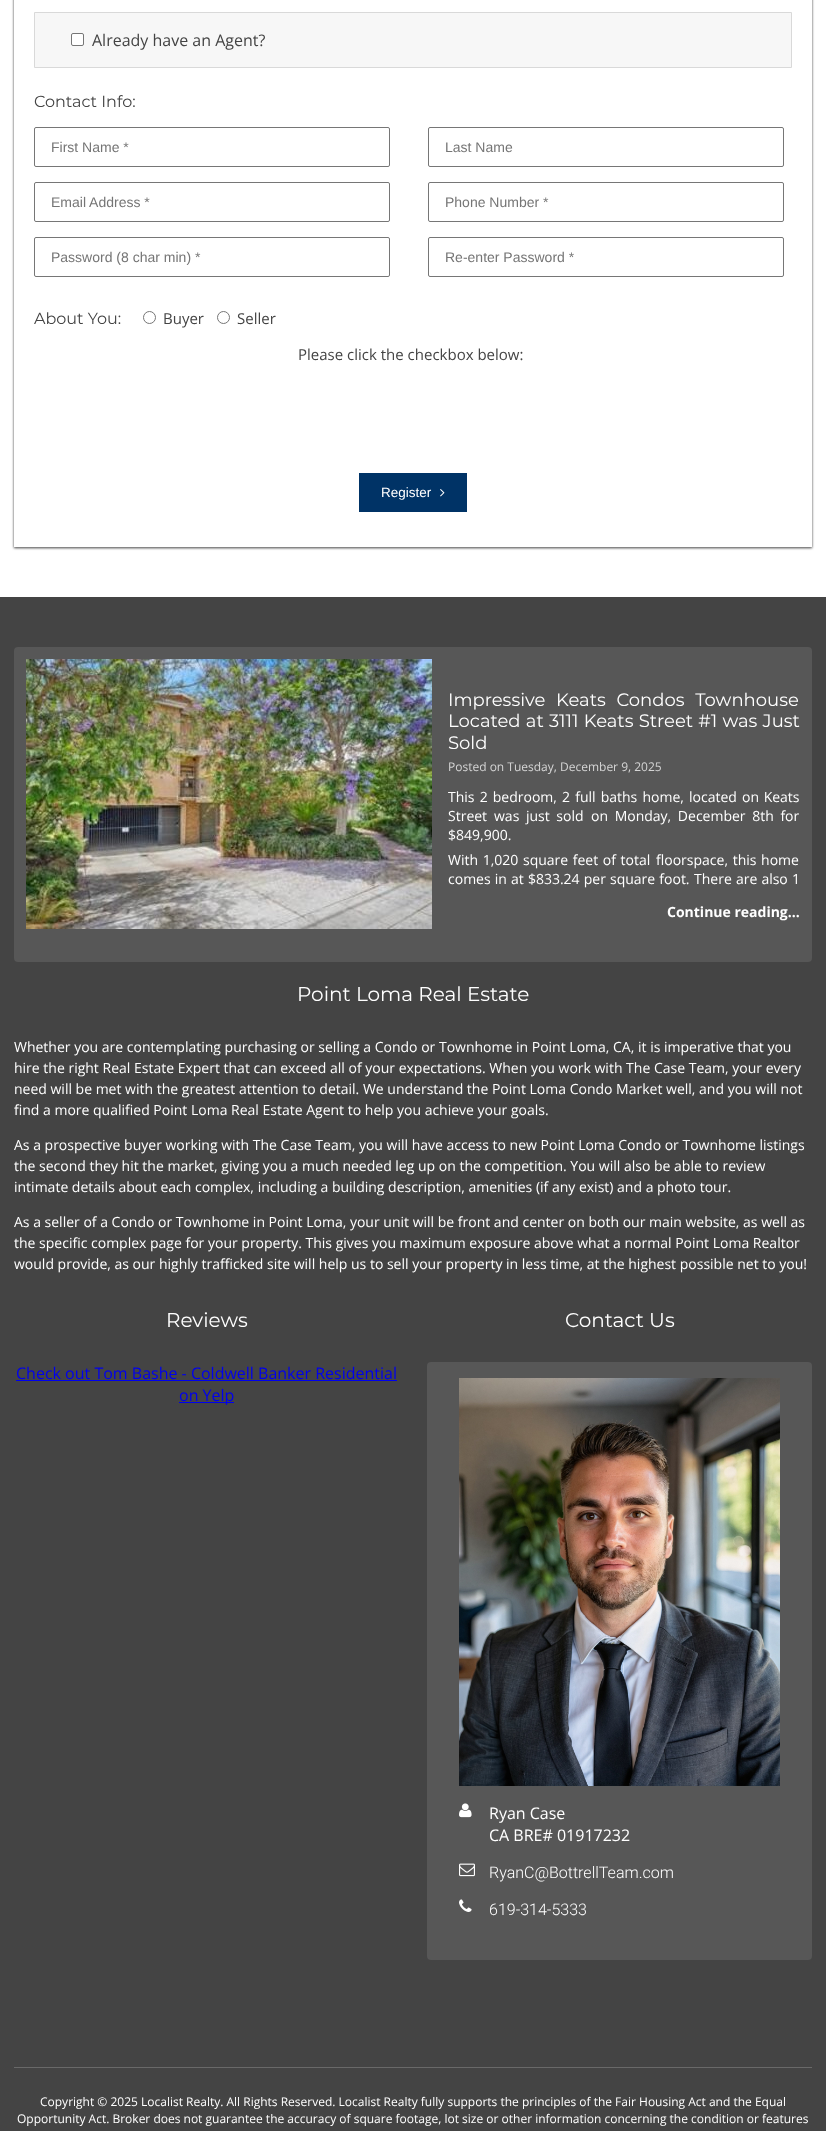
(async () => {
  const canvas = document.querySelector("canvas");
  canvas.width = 826;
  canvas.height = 2131;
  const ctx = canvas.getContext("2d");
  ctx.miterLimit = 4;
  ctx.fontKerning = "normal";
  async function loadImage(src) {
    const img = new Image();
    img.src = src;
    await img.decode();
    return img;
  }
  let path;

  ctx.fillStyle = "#ffffff";
  ctx.fillRect(0, 0, 826, 2131);
  ctx.save();
  path = new Path2D("M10 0H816V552H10ZM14-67H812V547H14Z");
  ctx.clip(path, "evenodd");
  ctx.fillStyle = "rgba(0, 0, 0, 0.48)";
  ctx.filter = "blur(1px)";
  ctx.beginPath();
  ctx.rect(14, -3, 798, 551);
  ctx.fill();
  ctx.filter = "none";
  ctx.restore();
  ctx.save();
  path = new Path2D("M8 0H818V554H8ZM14-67H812V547H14Z");
  ctx.clip(path, "evenodd");
  ctx.fillStyle = "rgba(0, 0, 0, 0.36)";
  ctx.filter = "blur(1.5px)";
  ctx.beginPath();
  ctx.rect(14, -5, 798, 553);
  ctx.fill();
  ctx.filter = "none";
  ctx.restore();
  ctx.fillStyle = "#f7f7f7";
  ctx.beginPath();
  ctx.rect(34.5, 12.5, 757, 55);
  ctx.fill();
  ctx.strokeStyle = "#d9d9d9";
  ctx.stroke();
  ctx.fillStyle = "#ffffff";
  ctx.beginPath();
  ctx.roundRect(71.5, 33.5, 12, 12, 1.5);
  ctx.fill();
  ctx.strokeStyle = "#767676";
  ctx.stroke();
  ctx.beginPath();
  ctx.roundRect(34.5, 127.5, 355, 39, 1.5);
  ctx.stroke();
  ctx.beginPath();
  ctx.roundRect(428.5, 127.5, 355, 39, 1.5);
  ctx.stroke();
  ctx.beginPath();
  ctx.roundRect(34.5, 182.5, 355, 39, 1.5);
  ctx.stroke();
  ctx.beginPath();
  ctx.roundRect(428.5, 182.5, 355, 39, 1.5);
  ctx.stroke();
  ctx.beginPath();
  ctx.roundRect(34.5, 237.5, 355, 39, 1.5);
  ctx.stroke();
  ctx.beginPath();
  ctx.roundRect(428.5, 237.5, 355, 39, 1.5);
  ctx.stroke();
  ctx.beginPath();
  ctx.arc(149.5, 317.5, 6, 0, Math.PI * 2);
  ctx.stroke();
  ctx.beginPath();
  ctx.arc(223.5, 317.5, 6, 0, Math.PI * 2);
  ctx.stroke();
  ctx.fillStyle = "#003366";
  ctx.fillRect(359, 473, 108, 39);
  ctx.drawImage(await loadImage("img/1.png"), 440, 489, 5, 8);
  ctx.fillStyle = "#444444";
  ctx.fillRect(0, 597, 826, 1534);
  ctx.fillStyle = "#575757";
  ctx.beginPath();
  ctx.roundRect(14, 647, 798, 315, 4);
  ctx.fill();
  ctx.drawImage(await loadImage("img/2.png"), 26, 659, 406, 270);
  ctx.fillStyle = "#0000ee";
  ctx.fillRect(16, 1380, 381, 1);
  ctx.fillRect(179, 1402, 55, 1);
  ctx.fillStyle = "#575757";
  ctx.beginPath();
  ctx.roundRect(427, 1362, 385, 598, 4);
  ctx.fill();
  ctx.drawImage(await loadImage("img/3.png"), 459, 1378, 321, 408);
  ctx.drawImage(await loadImage("img/4.png"), 459, 1803, 13, 15);
  ctx.drawImage(await loadImage("img/5.png"), 459, 1863, 16, 14);
  ctx.drawImage(await loadImage("img/6.png"), 459, 1899, 13, 13);
  ctx.fillStyle = "#696969";
  ctx.fillRect(14, 2067, 798, 1);
  ctx.font = "16px Open Sans";
  ctx.fillStyle = "#444444";
  ctx.fillText("Already have an Agent?", 92, 46);
  ctx.font = "100 16px Montserrat";
  ctx.fillText("Contact Info:", 34, 107);
  ctx.font = "14px Liberation Sans";
  ctx.fillStyle = "#757575";
  for (const [text, x, y] of [
    ["First Name *", 51, 152],
    ["Last Name", 445, 152],
    ["Email Address *", 51, 207],
    ["Phone Number *", 445, 207],
    ["Password (8 char min) *", 51, 262],
    ["Re-enter Password *", 445, 262],
  ]) {
    ctx.fillText(text, x, y);
  }
  ctx.font = "100 16px Montserrat";
  ctx.fillStyle = "#444444";
  ctx.fillText("About You:", 34, 324);
  ctx.font = "15px Open Sans";
  for (const [text, x, y] of [
    ["Buyer", 163, 324],
    ["Seller", 237, 324],
    ["Please click the checkbox below:", 298, 360],
  ]) {
    ctx.fillText(text, x, y);
  }
  ctx.font = "13.5px Liberation Sans";
  ctx.fillStyle = "#ffffff";
  ctx.fillText("Register", 381, 497);
  ctx.wordSpacing = "6px";
  ctx.font = "100 18px Montserrat";
  ctx.fillText("Impressive Keats Condos Townhouse", 448, 706);
  ctx.wordSpacing = "0.5px";
  ctx.fillText("Located at 3111 Keats Street #1 was Just", 448, 727);
  ctx.wordSpacing = "0px";
  ctx.fillText("Sold", 448, 749);
  ctx.font = "12px Open Sans";
  ctx.fillStyle = "#d5d5d5";
  ctx.fillText("Posted on Tuesday, December 9, 2025", 448, 771);
  ctx.wordSpacing = "1.5px";
  ctx.font = "14px Open Sans";
  ctx.fillStyle = "#ffffff";
  ctx.fillText("This 2 bedroom, 2 full baths home, located", 448, 802);
  ctx.wordSpacing = "1px";
  ctx.fillText("on Keats", 742, 802);
  ctx.wordSpacing = "0px";
  ctx.fillText("Street", 448, 821);
  ctx.wordSpacing = "3px";
  ctx.fillText("was just sold", 494, 821);
  ctx.fillText("on Monday, December 8th for", 591, 821);
  ctx.wordSpacing = "0px";
  ctx.fillText("$849,900.", 448, 840);
  ctx.wordSpacing = "1px";
  ctx.fillText("With 1,020 square feet of total", 448, 865);
  ctx.fillText("floorspace, this home", 656, 865);
  ctx.wordSpacing = "0.5px";
  for (const [text, x, y] of [
    ["comes in at $833.24 per", 448, 884],
    ["square foot.", 610, 884],
    ["There are also 1", 694, 884],
  ]) {
    ctx.fillText(text, x, y);
  }
  ctx.wordSpacing = "0px";
  ctx.font = "bold 14px Open Sans";
  ctx.fillText("Continue reading...", 667, 917);
  ctx.font = "100 20px Montserrat";
  ctx.fillText("Point Loma Real Estate", 297, 1001);
  ctx.font = "14px Open Sans";
  for (const [text, x, y] of [
    ["Whether you are contemplating purchasing or selling a Condo or Townhome in Point Loma, CA, it is imperative that you", 14, 1052],
    ["hire the right Real Estate Expert that can exceed all of your expectations. When you work with The Case Team, your every", 14, 1073],
    ["need will be met with the greatest attention to detail. We understand the Point Loma Condo Market well, and you will not", 14, 1094],
    ["find a more qualified Point Loma Real Estate Agent to help you achieve your goals.", 14, 1115],
    ["As a prospective buyer working with The Case Team, you will have access to new Point Loma Condo or Townhome listings", 14, 1150],
    ["the second they hit the market, giving you a much needed leg up on the competition. You will also be able to review", 14, 1171],
    ["intimate details about each complex, including a building description, amenities (if any exist) and a photo tour.", 14, 1192],
    ["As a seller of a Condo or Townhome in Point Loma, your unit will be front and center on both our main website, as well as", 14, 1227],
    ["the specific complex page for your property. This gives you maximum exposure above what a normal Point Loma Realtor", 14, 1248],
    ["would provide, as our highly trafficked site will help us to sell your property in less time, at the highest possible net to you!", 14, 1269],
  ]) {
    ctx.fillText(text, x, y);
  }
  ctx.font = "100 20px Montserrat";
  ctx.fillText("Reviews", 166, 1327);
  ctx.font = "16px Open Sans";
  ctx.fillStyle = "#0000ee";
  ctx.fillText("Check out Tom Bashe - Coldwell Banker Residential", 16, 1379);
  ctx.fillText("on Yelp", 179, 1401);
  ctx.font = "100 20px Montserrat";
  ctx.fillStyle = "#ffffff";
  ctx.fillText("Contact Us", 565, 1327);
  ctx.font = "16px Open Sans";
  ctx.fillText("Ryan Case", 489, 1819);
  ctx.fillText("CA BRE# 01917232", 489, 1841);
  ctx.font = "300 16px Roboto";
  ctx.fillText("RyanC@BottrellTeam.com", 489, 1878);
  ctx.fillText("619-314-5333", 489, 1915);
  ctx.font = "12px Open Sans";
  ctx.fillText("Copyright © 2025 Localist Realty. All Rights Reserved. Localist Realty fully supports the principles of the Fair Housing Act and the Equal", 40, 2106);
  ctx.fillText("Opportunity Act. Broker does not guarantee the accuracy of square footage, lot size or other information concerning the condition or features", 17, 2123);
})();
